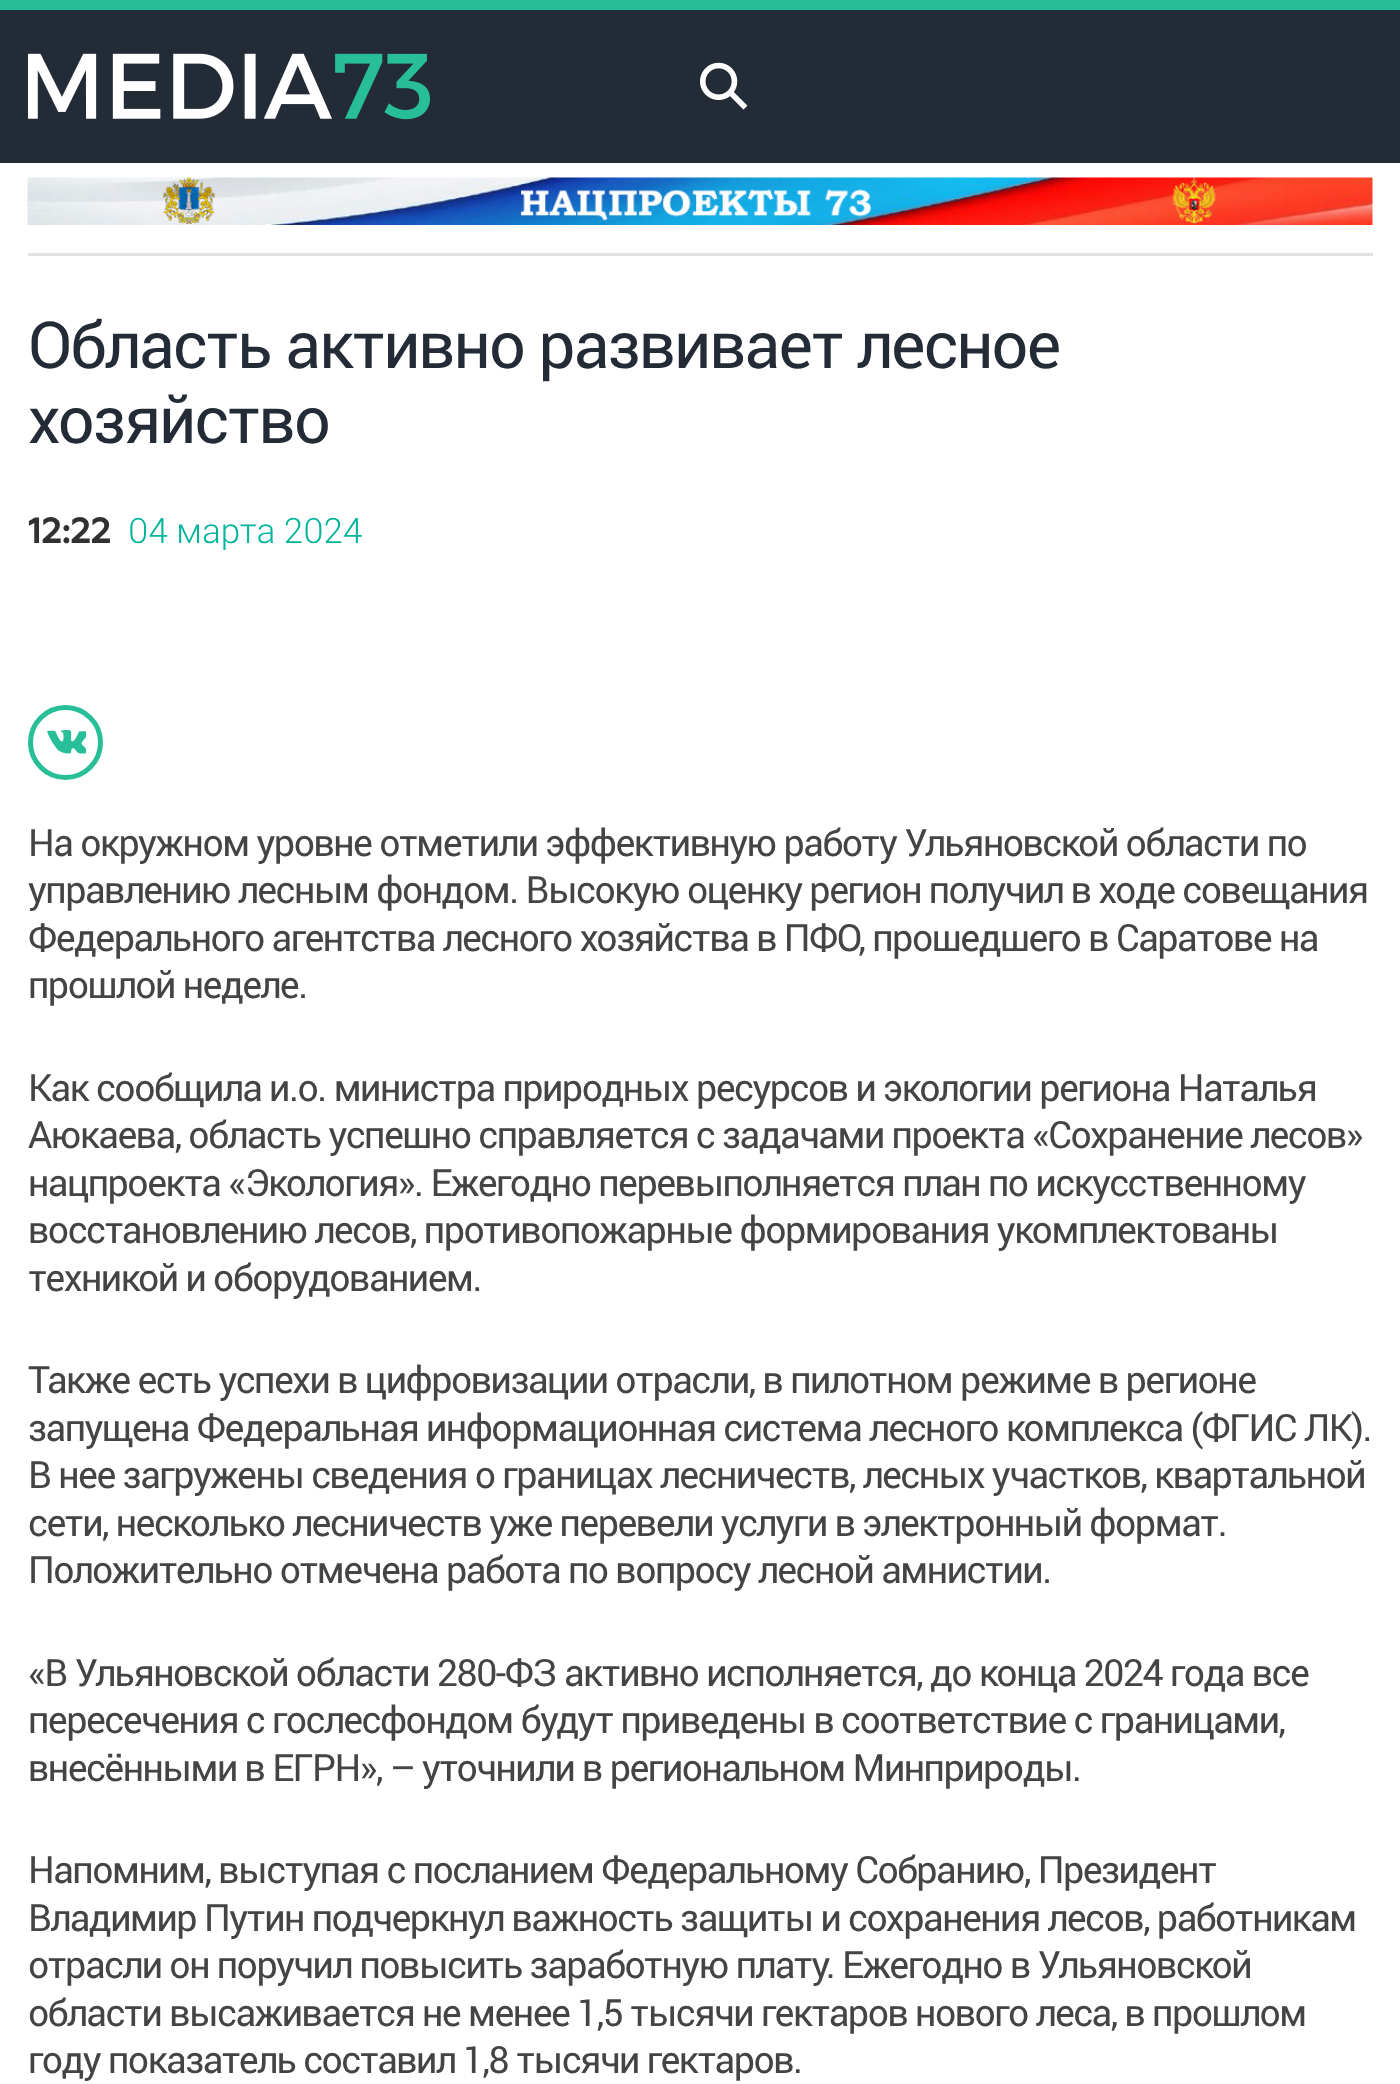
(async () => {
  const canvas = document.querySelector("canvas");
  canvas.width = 1400;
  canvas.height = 2084;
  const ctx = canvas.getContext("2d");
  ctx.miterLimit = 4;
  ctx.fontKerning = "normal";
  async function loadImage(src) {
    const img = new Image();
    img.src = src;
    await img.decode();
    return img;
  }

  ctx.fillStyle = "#ffffff";
  ctx.fillRect(0, 0, 1400, 2084);
  ctx.fillStyle = "#232b36";
  ctx.fillRect(0, 10, 1400, 153);
  ctx.fillStyle = "#27be98";
  ctx.fillRect(0, 0, 1400, 10);
  ctx.drawImage(await loadImage("img/1.png"), 28, 53, 402, 67);
  ctx.drawImage(await loadImage("img/2.png"), 700, 62, 48, 48);
  ctx.drawImage(await loadImage("img/3.png"), 27, 177, 1346, 48);
  ctx.fillStyle = "#e2e2e2";
  ctx.fillRect(28, 253, 1345, 3);
  ctx.beginPath();
  ctx.arc(65.5, 742.5, 35, 0, Math.PI * 2);
  ctx.strokeStyle = "#27be98";
  ctx.lineWidth = 5;
  ctx.stroke();
  ctx.drawImage(await loadImage("img/4.png"), 47, 730, 39, 24);
  ctx.letterSpacing = "-1.75px";
  ctx.font = "65px Roboto";
  ctx.fillStyle = "#232b36";
  ctx.fillText("Область активно развивает лесное", 28, 368);
  ctx.fillText("хозяйство", 28, 443);
  ctx.letterSpacing = "0px";
  ctx.font = "bold 35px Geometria";
  ctx.fillStyle = "#313134";
  ctx.fillText("12:22", 28, 543);
  ctx.font = "300 35px Roboto";
  ctx.fillStyle = "#00b59b";
  ctx.fillText("04 марта 2024", 128, 543);
  ctx.letterSpacing = "-1.5px";
  ctx.font = "37.5px Roboto";
  ctx.fillStyle = "#444444";
  for (const [text, x, y] of [
    ["На окружном уровне отметили эффективную работу Ульяновской области по", 28, 856],
    ["управлению лесным фондом. Высокую оценку регион получил в ходе совещания", 28, 903],
    ["Федерального агентства лесного хозяйства в ПФО, прошедшего в Саратове на", 28, 951],
    ["прошлой неделе.", 28, 998],
    ["Как сообщила и.о. министра природных ресурсов и экологии региона Наталья", 28, 1101],
    ["Аюкаева, область успешно справляется с задачами проекта «Сохранение лесов»", 28, 1148],
    ["нацпроекта «Экология». Ежегодно перевыполняется план по искусственному", 28, 1196],
    ["восстановлению лесов, противопожарные формирования укомплектованы", 28, 1243],
    ["техникой и оборудованием.", 28, 1291],
    ["Также есть успехи в цифровизации отрасли, в пилотном режиме в регионе", 28, 1393],
    ["запущена Федеральная информационная система лесного комплекса (ФГИС ЛК).", 28, 1441],
    ["В нее загружены сведения о границах лесничеств, лесных участков, квартальной", 28, 1488],
    ["сети, несколько лесничеств уже перевели услуги в электронный формат.", 28, 1536],
    ["Положительно отмечена работа по вопросу лесной амнистии.", 28, 1583],
    ["«В Ульяновской области 280-ФЗ активно исполняется, до конца 2024 года все", 28, 1686],
    ["пересечения с гослесфондом будут приведены в соответствие с границами,", 28, 1733],
    ["внесёнными в ЕГРН», – уточнили в региональном Минприроды.", 28, 1781],
    ["Напомним, выступая с посланием Федеральному Собранию, Президент", 28, 1883],
    ["Владимир Путин подчеркнул важность защиты и сохранения лесов, работникам", 28, 1931],
    ["отрасли он поручил повысить заработную плату. Ежегодно в Ульяновской", 28, 1978],
    ["области высаживается не менее 1,5 тысячи гектаров нового леса, в прошлом", 28, 2026],
    ["году показатель составил 1,8 тысячи гектаров.", 28, 2073],
  ]) {
    ctx.fillText(text, x, y);
  }
})();
